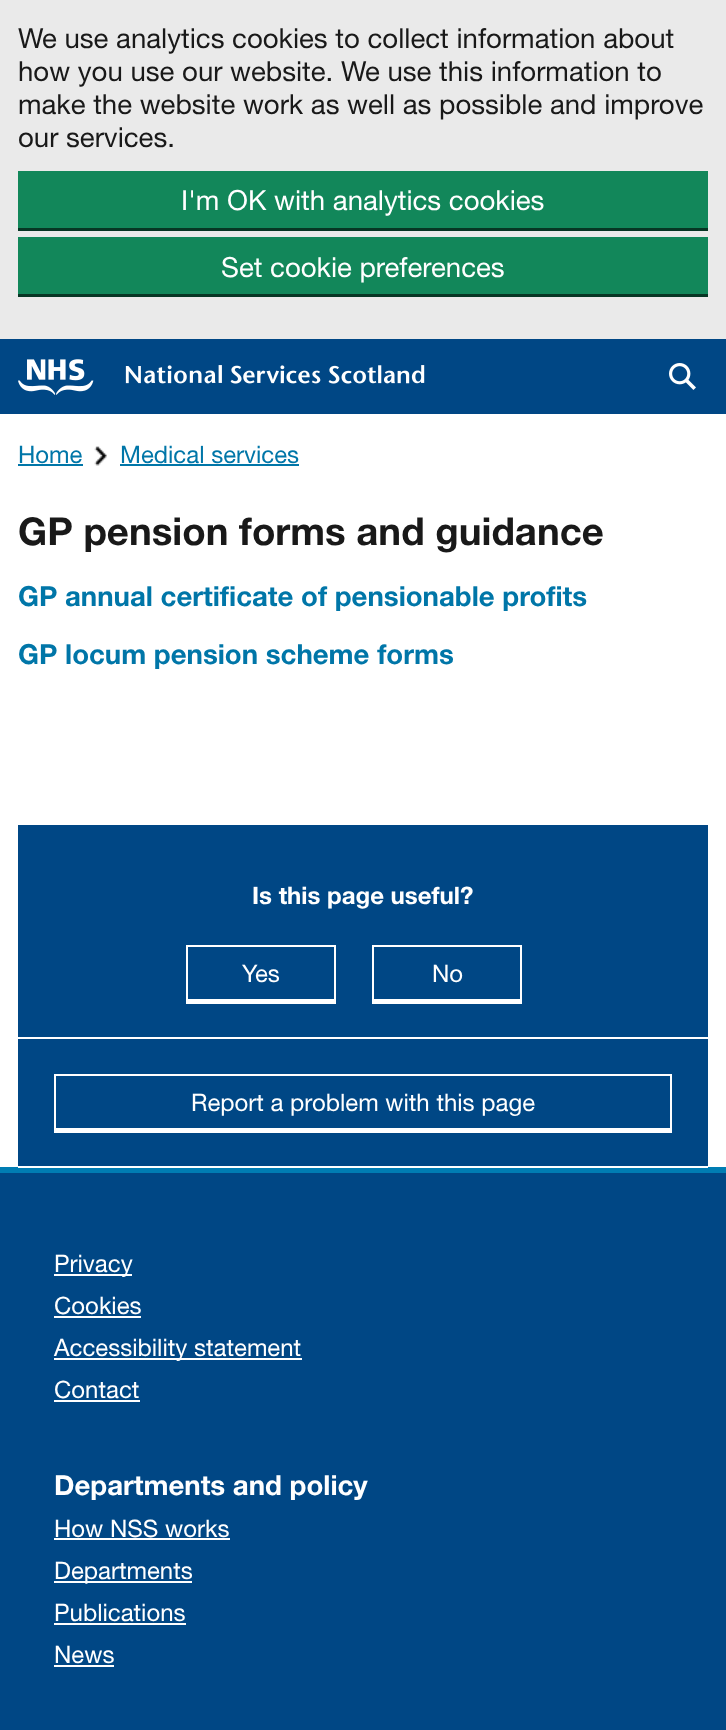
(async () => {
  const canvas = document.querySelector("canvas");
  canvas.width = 726;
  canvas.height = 1730;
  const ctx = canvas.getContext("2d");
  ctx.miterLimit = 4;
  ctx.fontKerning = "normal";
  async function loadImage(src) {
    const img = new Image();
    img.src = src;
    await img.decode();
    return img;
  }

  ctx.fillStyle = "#ffffff";
  ctx.fillRect(0, 0, 726, 1730);
  for (const [x, y, w, h, color] of [
    [0, 0, 726, 339, "#eaeaea"],
    [18, 228, 690, 3, "#073624"],
    [18, 171, 690, 57, "#12875a"],
    [18, 294, 690, 3, "#073624"],
    [18, 237, 690, 57, "#12875a"],
    [0, 339, 726, 75, "#004785"],
  ]) {
    ctx.fillStyle = color;
    ctx.fillRect(x, y, w, h);
  }
  ctx.drawImage(await loadImage("img/1.png"), 18, 359, 407, 36);
  ctx.drawImage(await loadImage("img/2.png"), 669, 363, 27, 27);
  ctx.fillStyle = "#0076a8";
  ctx.fillRect(18, 464, 65, 2);
  ctx.drawImage(await loadImage("img/3.png"), 94, 446, 13, 20);
  for (const [x, y, w, h, color] of [
    [120, 464, 179, 2, "#0076a8"],
    [18, 825, 690, 341, "#004785"],
    [18, 1037, 690, 2, "#ffffff"],
    [186, 1001, 150, 3, "#ffffff"],
  ]) {
    ctx.fillStyle = color;
    ctx.fillRect(x, y, w, h);
  }
  ctx.strokeStyle = "#ffffff";
  ctx.lineWidth = 2;
  ctx.strokeRect(187, 946, 148, 54);
  ctx.fillRect(372, 1001, 150, 3);
  ctx.strokeRect(373, 946, 148, 54);
  for (const [x, y, w, h, color] of [
    [0, 1167, 726, 6, "#007db3"],
    [18, 1167, 690, 1, "#ffffff"],
    [54, 1130, 618, 3, "#ffffff"],
  ]) {
    ctx.fillStyle = color;
    ctx.fillRect(x, y, w, h);
  }
  ctx.strokeRect(55, 1075, 616, 54);
  for (const [x, y, w, h, color] of [
    [0, 1173, 726, 557, "#004785"],
    [54, 1274, 78, 2, "#ffffff"],
    [54, 1316, 87, 2, "#ffffff"],
    [54, 1358, 248, 2, "#ffffff"],
    [54, 1400, 86, 2, "#ffffff"],
    [54, 1538, 176, 2, "#ffffff"],
    [54, 1581, 138, 2, "#ffffff"],
    [54, 1623, 132, 2, "#ffffff"],
    [54, 1665, 60, 2, "#ffffff"],
  ]) {
    ctx.fillStyle = color;
    ctx.fillRect(x, y, w, h);
  }
  ctx.font = "27.6px 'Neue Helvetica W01'";
  ctx.fillStyle = "#191919";
  for (const [text, x, y] of [
    ["We use analytics cookies to collect information about", 18, 48],
    ["how you use our website. We use this information to", 18, 81],
    ["make the website work as well as possible and improve", 18, 114],
    ["our services.", 18, 147],
  ]) {
    ctx.fillText(text, x, y);
  }
  ctx.fillStyle = "#ffffff";
  ctx.fillText("I'm OK with analytics cookies", 181, 210);
  ctx.fillText("Set cookie preferences", 221, 277);
  ctx.font = "24px 'Neue Helvetica W01'";
  ctx.fillStyle = "#0076a8";
  ctx.fillText("Home", 18, 463);
  ctx.fillText("Medical services", 120, 463);
  ctx.font = "bold 38.4px 'Neue Helvetica W01'";
  ctx.fillStyle = "#191919";
  ctx.fillText("GP pension forms and guidance", 18, 545);
  ctx.font = "bold 27.6px 'Neue Helvetica W01'";
  ctx.fillStyle = "#0076a8";
  ctx.fillText("GP annual certificate of pensionable profits", 18, 606);
  ctx.fillText("GP locum pension scheme forms", 18, 664);
  ctx.font = "bold 24px 'Neue Helvetica W01'";
  ctx.fillStyle = "#ffffff";
  ctx.fillText("Is this page useful?", 252, 904);
  ctx.font = "24px 'Neue Helvetica W01'";
  for (const [text, x, y] of [
    ["Yes", 242, 982],
    ["No", 432, 982],
    ["Report a problem with this page", 191, 1111],
    ["Privacy", 54, 1272],
    ["Cookies", 54, 1314],
    ["Accessibility statement", 54, 1356],
    ["Contact", 54, 1398],
  ]) {
    ctx.fillText(text, x, y);
  }
  ctx.font = "bold 27.6px 'Neue Helvetica W01'";
  ctx.fillText("Departments and policy", 54, 1495);
  ctx.font = "24px 'Neue Helvetica W01'";
  for (const [text, x, y] of [
    ["How NSS works", 54, 1537],
    ["Departments", 54, 1579],
    ["Publications", 54, 1621],
    ["News", 54, 1663],
  ]) {
    ctx.fillText(text, x, y);
  }
})();
